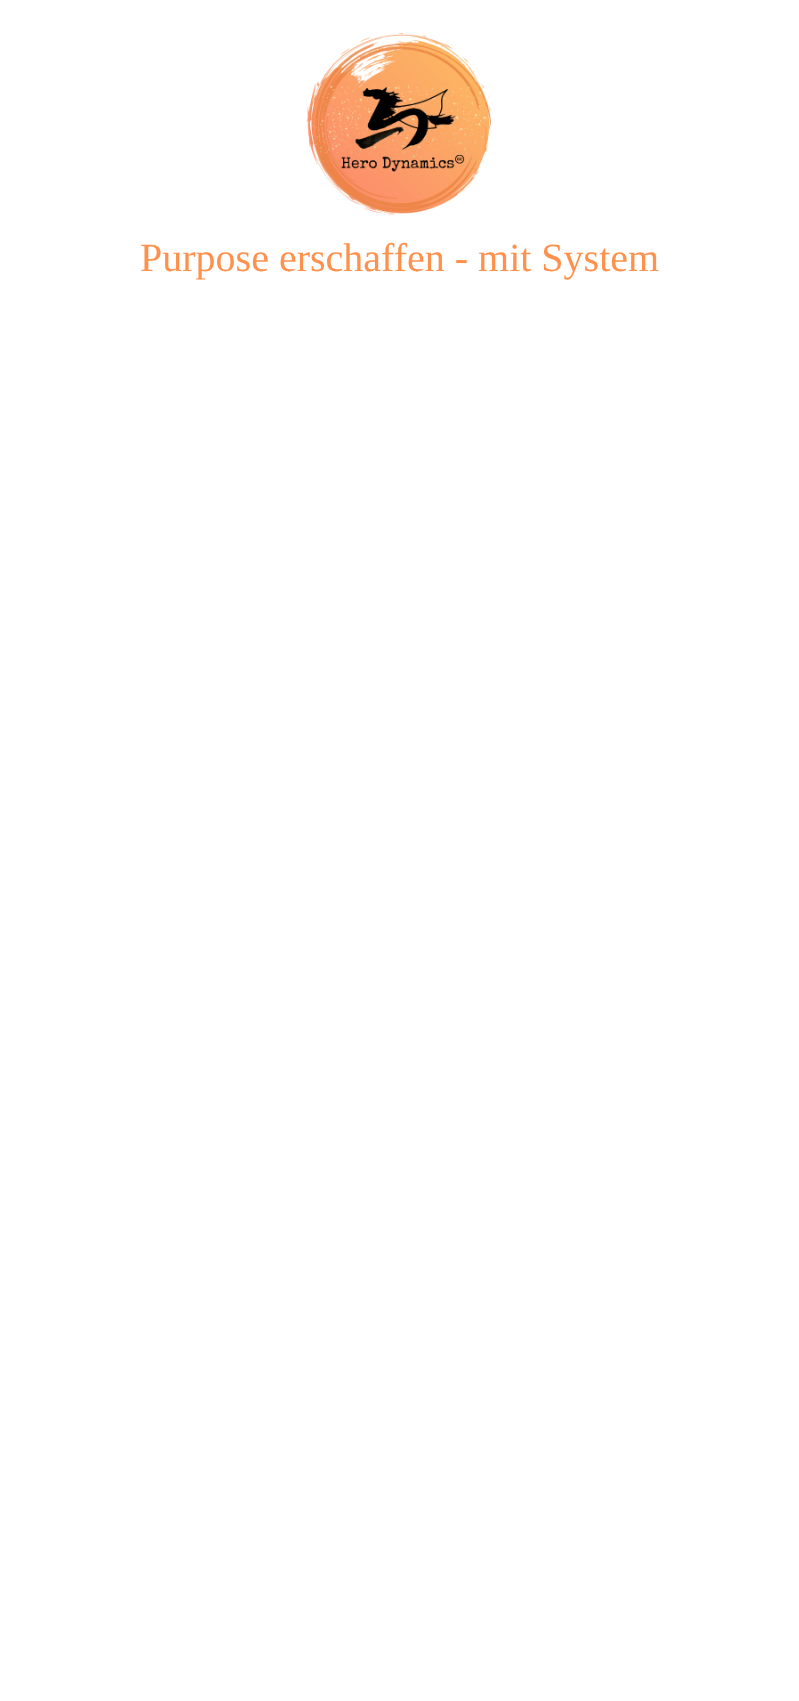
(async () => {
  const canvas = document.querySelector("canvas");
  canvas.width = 799;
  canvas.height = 1701;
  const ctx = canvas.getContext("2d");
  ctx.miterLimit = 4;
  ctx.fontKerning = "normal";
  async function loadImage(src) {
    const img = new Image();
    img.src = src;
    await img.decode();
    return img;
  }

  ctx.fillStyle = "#ffffff";
  ctx.fillRect(0, 0, 799, 1701);
  ctx.drawImage(await loadImage("img/1.png"), 306, 33, 186, 182);
  ctx.font = "40px Liberation Serif";
  ctx.fillStyle = "#ff914d";
  ctx.fillText("Purpose erschaffen - mit System", 140, 271);
})();
